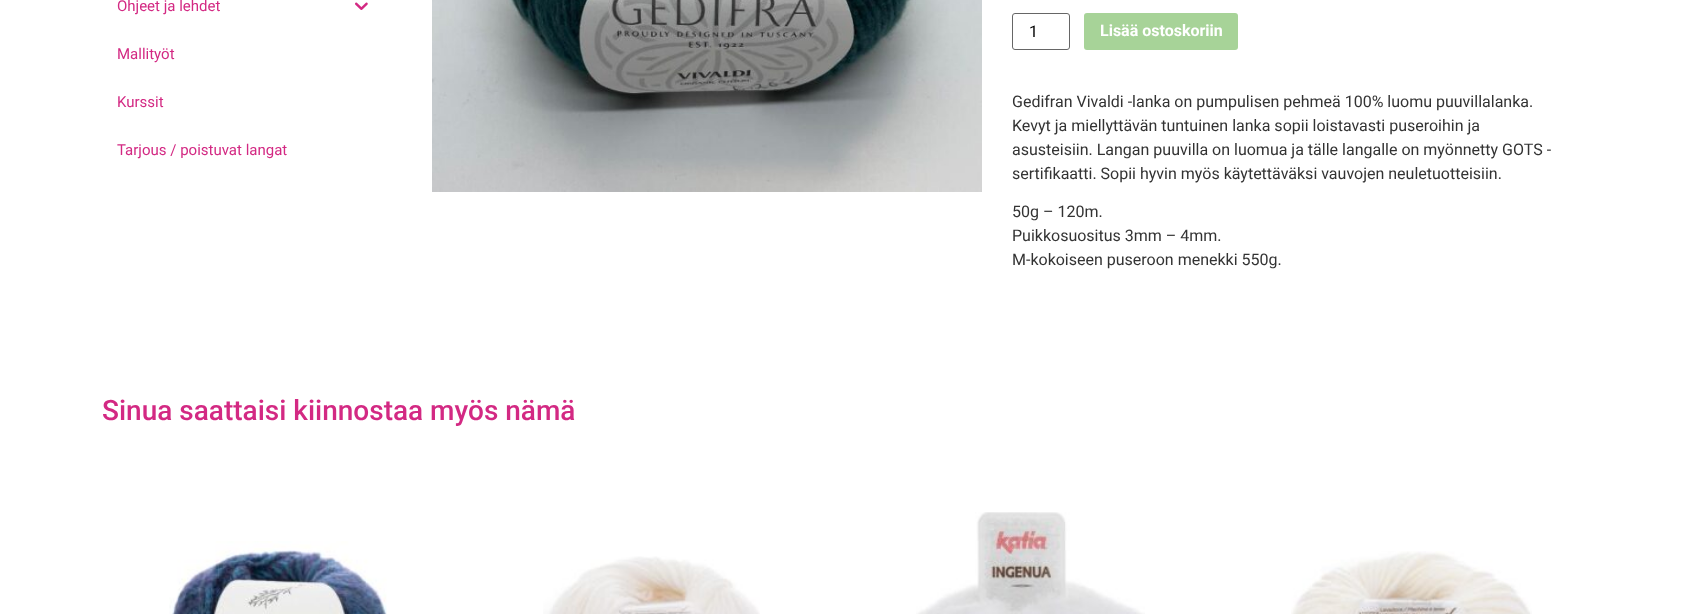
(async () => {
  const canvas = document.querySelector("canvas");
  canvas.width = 1683;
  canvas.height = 614;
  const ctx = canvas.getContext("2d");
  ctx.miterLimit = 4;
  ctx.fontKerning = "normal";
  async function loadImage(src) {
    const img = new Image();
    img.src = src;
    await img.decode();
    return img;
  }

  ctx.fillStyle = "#ffffff";
  ctx.fillRect(0, 0, 1683, 614);
  ctx.drawImage(await loadImage("img/1.png"), 355, 2, 13, 8);
  ctx.drawImage(await loadImage("img/2.png"), 432, 0, 550, 192);
  ctx.beginPath();
  ctx.roundRect(1012.5, 13.5, 57, 36, 2.5);
  ctx.strokeStyle = "#666666";
  ctx.stroke();
  ctx.fillStyle = "#a7d398";
  ctx.beginPath();
  ctx.roundRect(1084, 13, 154, 37, 3);
  ctx.fill();
  ctx.drawImage(await loadImage("img/3.png"), 169, 541, 218, 73);
  ctx.drawImage(await loadImage("img/4.png"), 543, 556, 217, 58);
  ctx.drawImage(await loadImage("img/5.png"), 916, 512, 229, 102);
  ctx.drawImage(await loadImage("img/6.png"), 1291, 551, 241, 63);
  ctx.font = "15px Roboto";
  ctx.fillStyle = "#d32983";
  for (const [text, x, y] of [
    ["Ohjeet ja lehdet", 117, 11],
    ["Mallityöt", 117, 59],
    ["Kurssit", 117, 107],
    ["Tarjous / poistuvat langat", 117, 155],
  ]) {
    ctx.fillText(text, x, y);
  }
  ctx.font = "16px Roboto";
  ctx.fillStyle = "#000000";
  ctx.fillText("1", 1029, 37);
  ctx.font = "bold 16px Roboto";
  ctx.fillStyle = "#ffffff";
  ctx.fillText("Lisää ostoskoriin", 1100, 36);
  ctx.font = "16px Roboto";
  ctx.fillStyle = "#333333";
  for (const [text, x, y] of [
    ["Gedifran Vivaldi -lanka on pumpulisen pehmeä 100% luomu puuvillalanka.", 1012, 107],
    ["Kevyt ja miellyttävän tuntuinen lanka sopii loistavasti puseroihin ja", 1012, 131],
    ["asusteisiin. Langan puuvilla on luomua ja tälle langalle on myönnetty GOTS -", 1012, 155],
    ["sertifikaatti. Sopii hyvin myös käytettäväksi vauvojen neuletuotteisiin.", 1012, 179],
    ["50g – 120m.", 1012, 217],
    ["Puikkosuositus 3mm – 4mm.", 1012, 241],
    ["M-kokoiseen puseroon menekki 550g.", 1012, 265],
  ]) {
    ctx.fillText(text, x, y);
  }
  ctx.font = "500 28px Roboto";
  ctx.fillStyle = "#d32983";
  ctx.fillText("Sinua saattaisi kiinnostaa myös nämä", 102, 420);
})();
